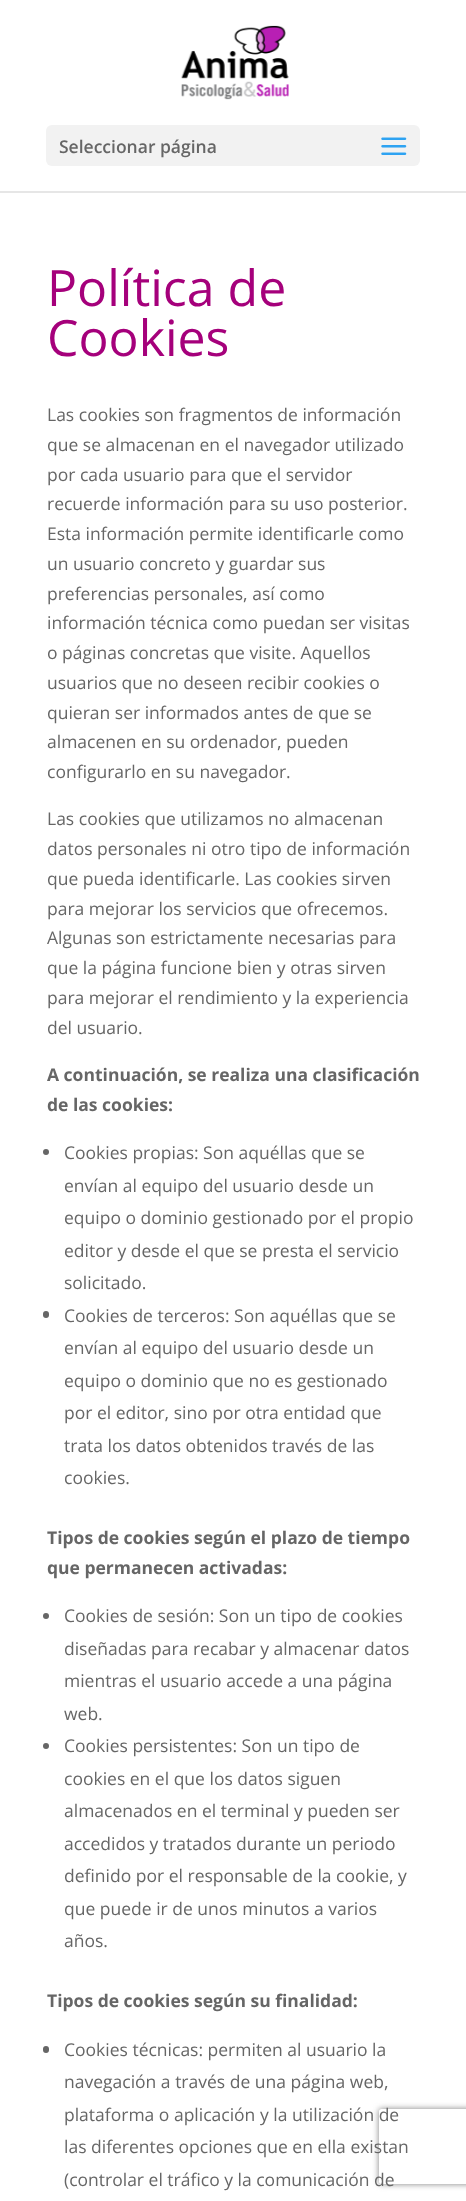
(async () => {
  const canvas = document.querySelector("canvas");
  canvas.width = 466;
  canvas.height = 2201;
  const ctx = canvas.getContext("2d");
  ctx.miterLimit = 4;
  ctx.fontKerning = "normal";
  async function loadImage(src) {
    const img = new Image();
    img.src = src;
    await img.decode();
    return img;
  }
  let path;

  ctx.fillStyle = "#ffffff";
  ctx.fillRect(0, 0, 466, 2201);
  ctx.fillStyle = "#e6e6e6";
  ctx.fillRect(0, 191, 466, 2);
  ctx.drawImage(await loadImage("img/1.png"), 181, 25, 108, 75);
  ctx.fillStyle = "#f2f2f2";
  ctx.beginPath();
  ctx.roundRect(46, 125, 374, 41, 6);
  ctx.fill();
  ctx.drawImage(await loadImage("img/2.png"), 381, 137, 26, 18);
  ctx.fillStyle = "#666666";
  ctx.beginPath();
  ctx.arc(46, 1152, 3, 0, Math.PI * 2);
  ctx.fill();
  ctx.beginPath();
  ctx.roundRect(43, 1311, 6, 7, 3);
  ctx.fill();
  ctx.beginPath();
  ctx.arc(46, 1616, 3, 0, Math.PI * 2);
  ctx.fill();
  ctx.beginPath();
  ctx.arc(46, 1746, 3, 0, Math.PI * 2);
  ctx.fill();
  ctx.beginPath();
  ctx.roundRect(43, 2046, 6, 7, 3);
  ctx.fill();
  ctx.save();
  path = new Path2D("M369 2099H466V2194H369ZM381.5 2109H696.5C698 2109 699 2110 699 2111.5V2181.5C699 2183 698 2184 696.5 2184H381.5C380 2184 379 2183 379 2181.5V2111.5C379 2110 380 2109 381.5 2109Z");
  ctx.clip(path, "evenodd");
  ctx.fillStyle = "#808080";
  ctx.filter = "blur(3px)";
  ctx.beginPath();
  ctx.roundRect(379, 2109, 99, 75, 2.5);
  ctx.fill();
  ctx.filter = "none";
  ctx.restore();
  ctx.font = "600 17.5px Open Sans";
  ctx.fillText("Seleccionar página", 59, 153);
  ctx.font = "50px Open Sans";
  ctx.fillStyle = "#a5007b";
  ctx.fillText("Política de", 47, 306);
  ctx.fillText("Cookies", 47, 356);
  ctx.font = "17.5px Open Sans";
  ctx.fillStyle = "#666666";
  for (const [text, x, y] of [
    ["Las cookies son fragmentos de información", 47, 421],
    ["que se almacenan en el navegador utilizado", 47, 451],
    ["por cada usuario para que el servidor", 47, 481],
    ["recuerde información para su uso posterior.", 47, 510],
    ["Esta información permite identificarle como", 47, 540],
    ["un usuario concreto y guardar sus", 47, 570],
    ["preferencias personales, así como", 47, 600],
    ["información técnica como puedan ser visitas", 47, 629],
    ["o páginas concretas que visite. Aquellos", 47, 659],
    ["usuarios que no deseen recibir cookies o", 47, 689],
    ["quieran ser informados antes de que se", 47, 719],
    ["almacenen en su ordenador, pueden", 47, 748],
    ["configurarlo en su navegador.", 47, 778],
    ["Las cookies que utilizamos no almacenan", 47, 825],
    ["datos personales ni otro tipo de información", 47, 855],
    ["que pueda identificarle. Las cookies sirven", 47, 885],
    ["para mejorar los servicios que ofrecemos.", 47, 915],
    ["Algunas son estrictamente necesarias para", 47, 944],
    ["que la página funcione bien y otras sirven", 47, 974],
    ["para mejorar el rendimiento y la experiencia", 47, 1004],
    ["del usuario.", 47, 1034],
  ]) {
    ctx.fillText(text, x, y);
  }
  ctx.font = "bold 17.5px Open Sans";
  ctx.fillText("A continuación, se realiza una clasificación", 47, 1081);
  ctx.fillText("de las cookies:", 47, 1111);
  ctx.font = "17.5px Open Sans";
  for (const [text, x, y] of [
    ["Cookies propias: Son aquéllas que se", 64, 1159],
    ["envían al equipo del usuario desde un", 64, 1192],
    ["equipo o dominio gestionado por el propio", 64, 1224],
    ["editor y desde el que se presta el servicio", 64, 1257],
    ["solicitado.", 64, 1289],
    ["Cookies de terceros: Son aquéllas que se", 64, 1322],
    ["envían al equipo del usuario desde un", 64, 1354],
    ["equipo o dominio que no es gestionado", 64, 1387],
    ["por el editor, sino por otra entidad que", 64, 1419],
    ["trata los datos obtenidos través de las", 64, 1452],
    ["cookies.", 64, 1484],
  ]) {
    ctx.fillText(text, x, y);
  }
  ctx.font = "bold 17.5px Open Sans";
  ctx.fillText("Tipos de cookies según el plazo de tiempo", 47, 1544);
  ctx.fillText("que permanecen activadas:", 47, 1574);
  ctx.font = "17.5px Open Sans";
  for (const [text, x, y] of [
    ["Cookies de sesión: Son un tipo de cookies", 64, 1622],
    ["diseñadas para recabar y almacenar datos", 64, 1655],
    ["mientras el usuario accede a una página", 64, 1687],
    ["web.", 64, 1720],
    ["Cookies persistentes: Son un tipo de", 64, 1752],
    ["cookies en el que los datos siguen", 64, 1785],
    ["almacenados en el terminal y pueden ser", 64, 1817],
    ["accedidos y tratados durante un periodo", 64, 1850],
    ["definido por el responsable de la cookie, y", 64, 1882],
    ["que puede ir de unos minutos a varios", 64, 1915],
    ["años.", 64, 1947],
  ]) {
    ctx.fillText(text, x, y);
  }
  ctx.font = "bold 17.5px Open Sans";
  ctx.fillText("Tipos de cookies según su finalidad:", 47, 2007);
  ctx.font = "17.5px Open Sans";
  for (const [text, x, y] of [
    ["Cookies técnicas: permiten al usuario la", 64, 2056],
    ["navegación a través de una página web,", 64, 2088],
    ["plataforma o aplicación y la utilización de", 64, 2121],
    ["las diferentes opciones que en ella existan", 64, 2153],
    ["(controlar el tráfico y la comunicación de", 64, 2186],
  ]) {
    ctx.fillText(text, x, y);
  }
})();
